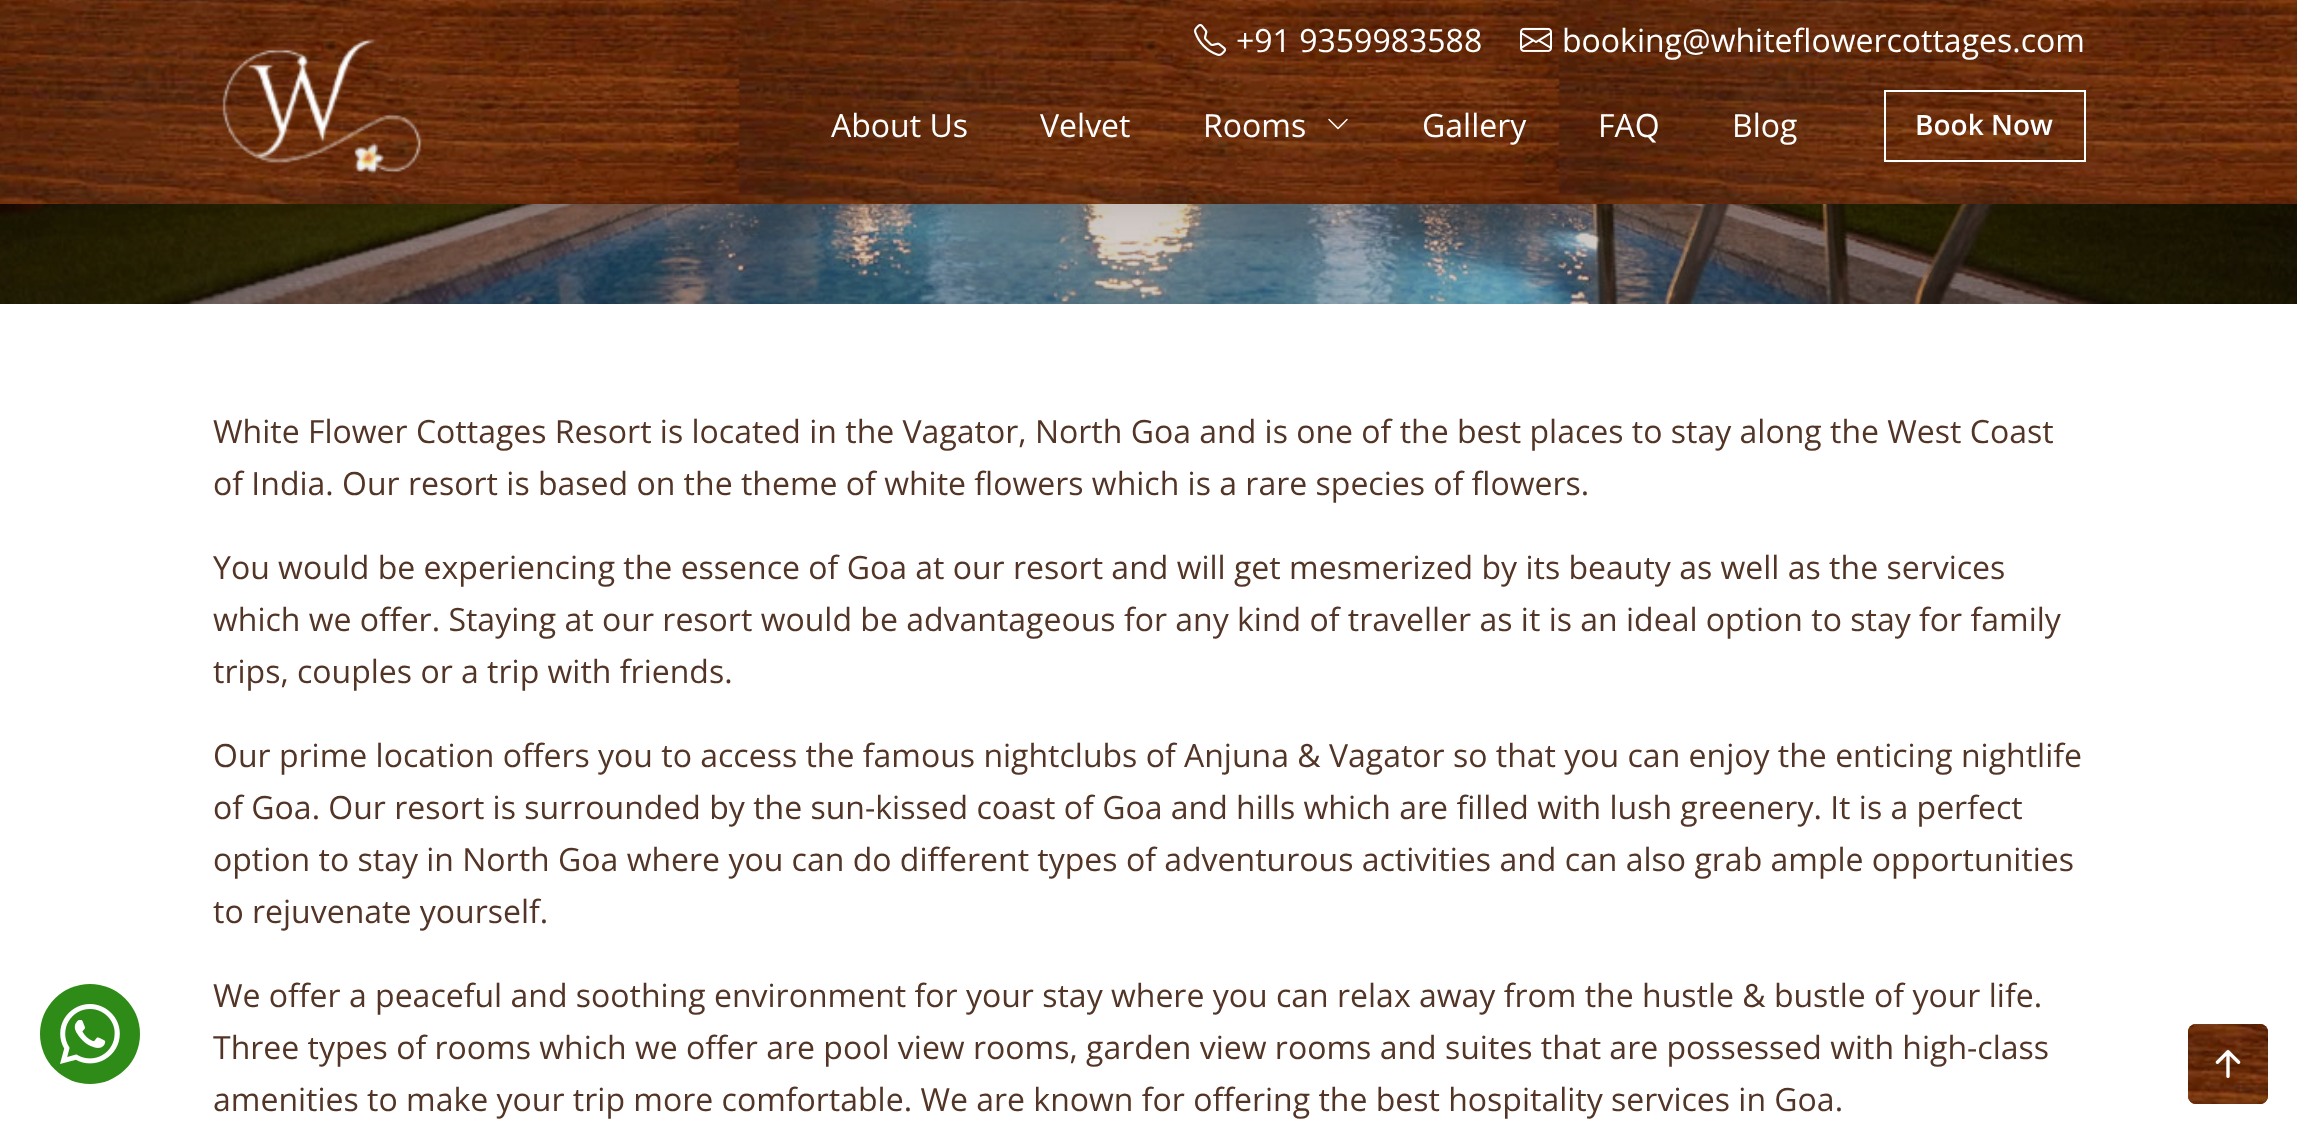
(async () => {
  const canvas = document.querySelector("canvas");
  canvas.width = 2297;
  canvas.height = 1134;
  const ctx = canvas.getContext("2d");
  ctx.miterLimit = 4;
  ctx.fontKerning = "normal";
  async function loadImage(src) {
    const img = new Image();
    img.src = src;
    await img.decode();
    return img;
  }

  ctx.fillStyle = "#ffffff";
  ctx.fillRect(0, 0, 2297, 1134);
  ctx.drawImage(await loadImage("img/6.png"), 0, 204, 2297, 100);
  ctx.fillStyle = "rgba(0, 0, 0, 0.1)";
  ctx.filter = "blur(15px)";
  ctx.beginPath();
  ctx.rect(0, 4, 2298, 204);
  ctx.fill();
  ctx.filter = "none";
  ctx.drawImage(await loadImage("img/1.png"), 0, 0, 2297, 204);
  ctx.drawImage(await loadImage("img/2.png"), 1194, 24, 32, 32);
  ctx.drawImage(await loadImage("img/3.png"), 1520, 27, 32, 25);
  ctx.drawImage(await loadImage("img/4.png"), 222, 39, 200, 135);
  ctx.drawImage(await loadImage("img/5.png"), 1328, 118, 20, 12);
  ctx.strokeStyle = "#ffffff";
  ctx.lineWidth = 2;
  ctx.strokeRect(1885, 91, 200, 70);
  ctx.fillStyle = "#2e8b17";
  ctx.beginPath();
  ctx.arc(90, 1034, 50, 0, Math.PI * 2);
  ctx.fill();
  ctx.drawImage(await loadImage("img/7.png"), 60, 1004, 60, 60);
  ctx.fillStyle = "#6e2e09";
  ctx.beginPath();
  ctx.roundRect(2188, 1024, 80, 80, 8);
  ctx.fill();
  ctx.drawImage(await loadImage("img/8.png"), 2188, 1024, 80, 80);
  ctx.drawImage(await loadImage("img/9.png"), 2215, 1050, 26, 28);
  ctx.font = "32px Open Sans";
  ctx.fillStyle = "#ffffff";
  for (const [text, x, y] of [
    ["+91 9359983588", 1236, 52],
    ["booking@whiteflowercottages.com", 1562, 52],
    ["About Us", 831, 137],
    ["Velvet", 1040, 137],
    ["Rooms", 1203, 137],
    ["Gallery", 1422, 137],
    ["FAQ", 1598, 137],
    ["Blog", 1732, 137],
  ]) {
    ctx.fillText(text, x, y);
  }
  ctx.font = "600 28px Open Sans";
  ctx.fillText("Book Now", 1915, 135);
  ctx.font = "32px Open Sans";
  ctx.fillStyle = "#523526";
  for (const [text, x, y] of [
    ["White Flower Cottages Resort is located in the Vagator, North Goa and is one of the best places to stay along the West Coast", 213, 443],
    ["of India. Our resort is based on the theme of white flowers which is a rare species of flowers.", 213, 495],
    ["You would be experiencing the essence of Goa at our resort and will get mesmerized by its beauty as well as the services", 213, 579],
    ["which we offer. Staying at our resort would be advantageous for any kind of traveller as it is an ideal option to stay for family", 213, 631],
    ["trips, couples or a trip with friends.", 213, 683],
    ["Our prime location offers you to access the famous nightclubs of Anjuna & Vagator so that you can enjoy the enticing nightlife", 213, 767],
    ["of Goa. Our resort is surrounded by the sun-kissed coast of Goa and hills which are filled with lush greenery. It is a perfect", 213, 819],
    ["option to stay in North Goa where you can do different types of adventurous activities and can also grab ample opportunities", 213, 871],
    ["to rejuvenate yourself.", 213, 923],
    ["We offer a peaceful and soothing environment for your stay where you can relax away from the hustle & bustle of your life.", 213, 1007],
    ["Three types of rooms which we offer are pool view rooms, garden view rooms and suites that are possessed with high-class", 213, 1059],
    ["amenities to make your trip more comfortable. We are known for offering the best hospitality services in Goa.", 213, 1111],
  ]) {
    ctx.fillText(text, x, y);
  }
})();
